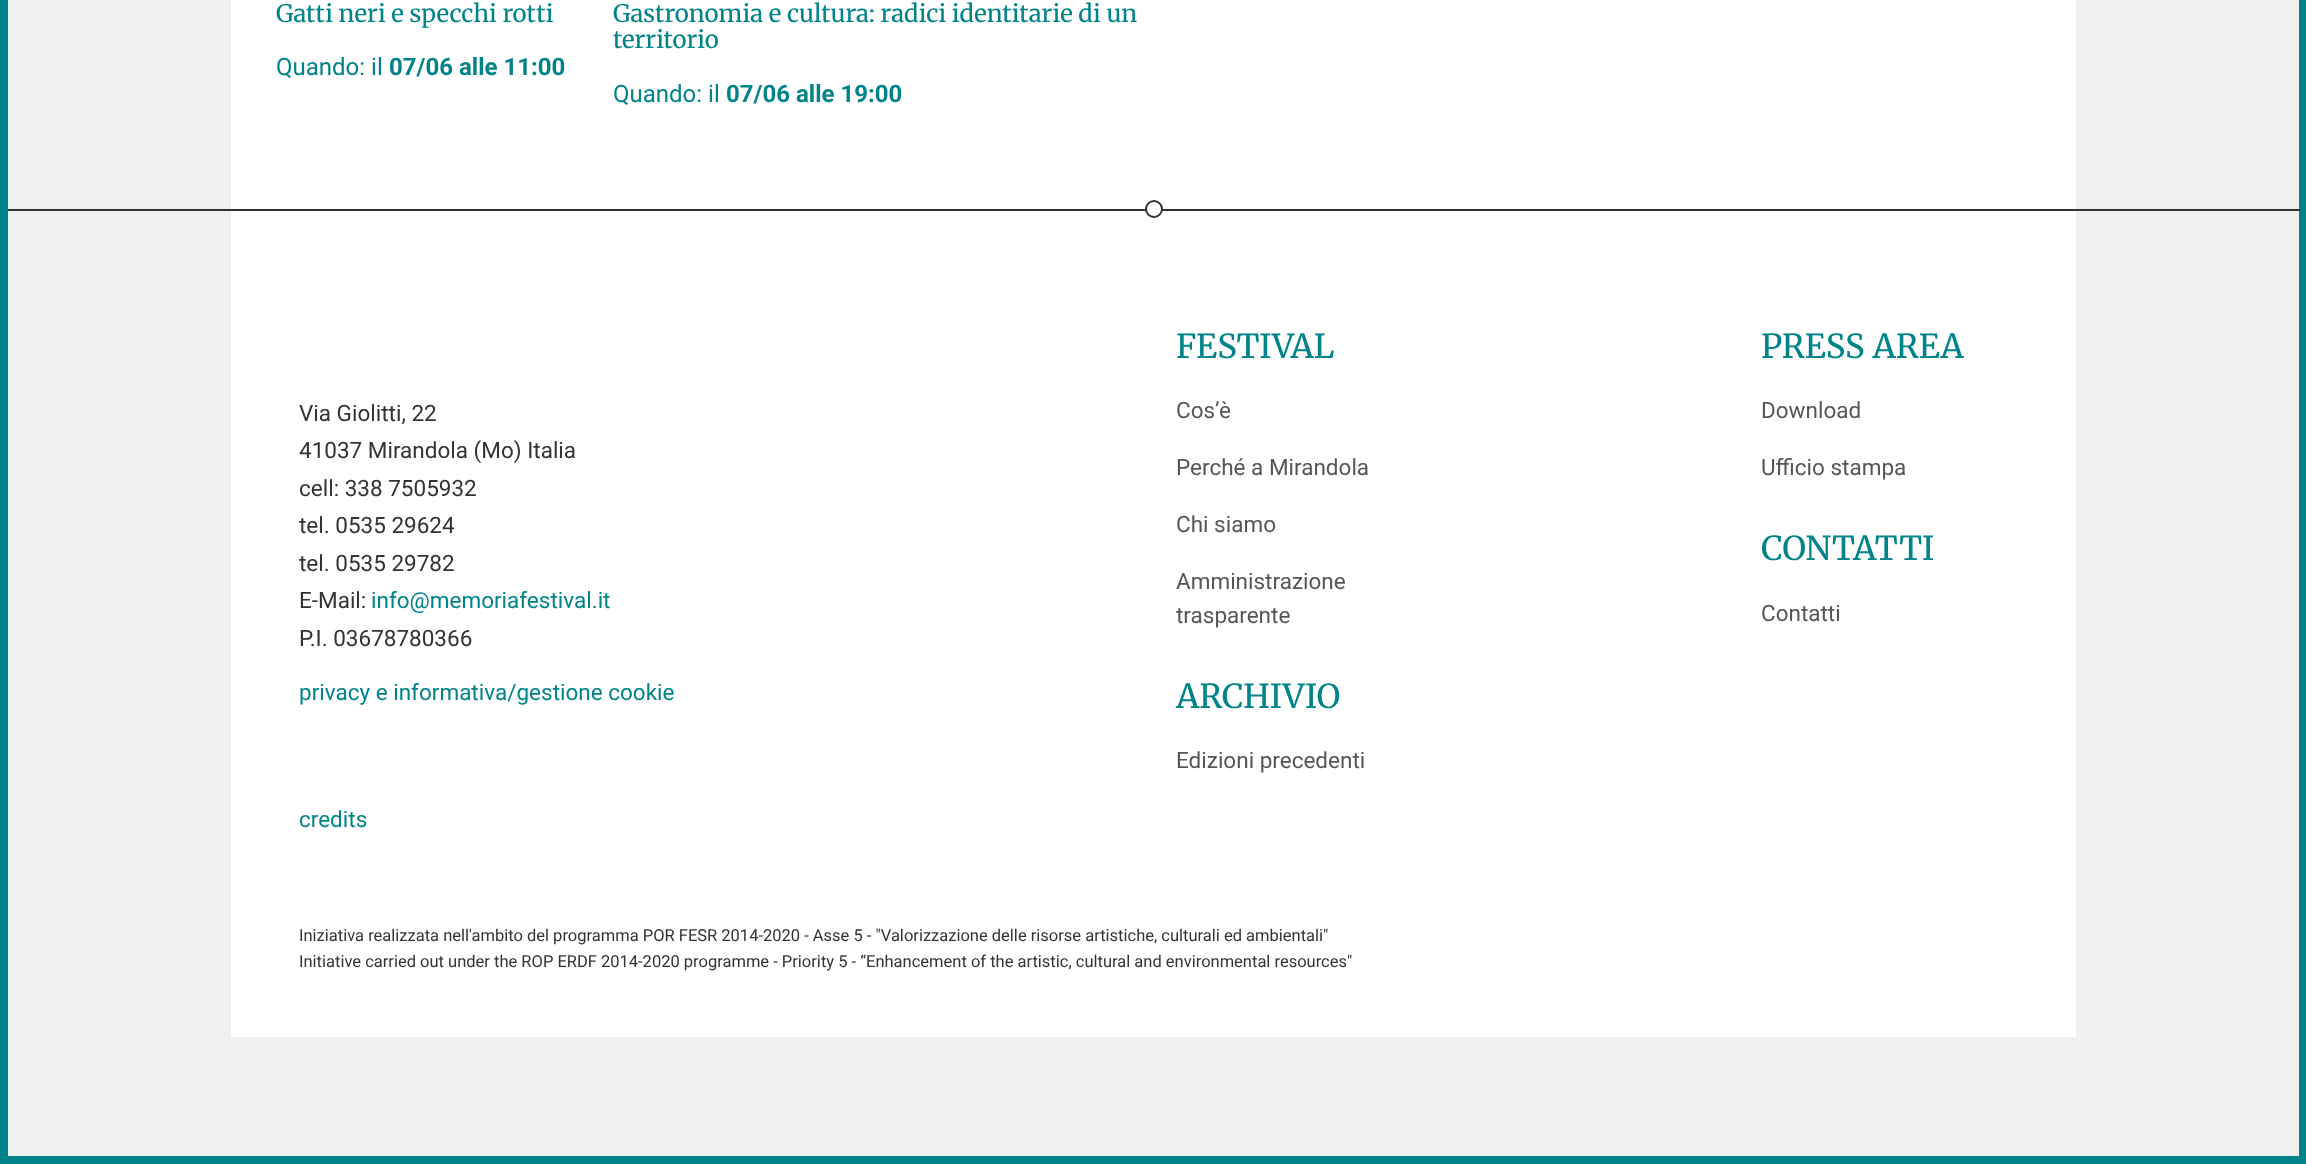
(async () => {
  const canvas = document.querySelector("canvas");
  canvas.width = 2306;
  canvas.height = 1164;
  const ctx = canvas.getContext("2d");
  ctx.miterLimit = 4;
  ctx.fontKerning = "normal";

  ctx.fillStyle = "#f0f0f0";
  ctx.fillRect(0, 0, 2306, 1164);
  ctx.strokeStyle = "#008389";
  ctx.lineWidth = 8;
  ctx.strokeRect(4, -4, 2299, 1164);
  for (const [x, y, w, h, color] of [
    [231, 0, 1845, 209, "#ffffff"],
    [8, 209, 2292, 2, "#333333"],
    [231, 211, 1845, 826, "#ffffff"],
  ]) {
    ctx.fillStyle = color;
    ctx.fillRect(x, y, w, h);
  }
  ctx.beginPath();
  ctx.arc(1154, 209, 8, 0, Math.PI * 2);
  ctx.fill();
  ctx.strokeStyle = "#333333";
  ctx.lineWidth = 2;
  ctx.stroke();
  ctx.font = "24px Merriweather";
  ctx.fillStyle = "#008389";
  ctx.fillText("Gatti neri e specchi rotti", 276, 22);
  ctx.font = "24px Roboto";
  ctx.fillText("Quando: il", 276, 75);
  ctx.font = "bold 24px Roboto";
  ctx.fillText("07/06 alle 11:00", 389, 75);
  ctx.font = "24px Merriweather";
  ctx.fillText("Gastronomia e cultura: radici identitarie di un", 613, 22);
  ctx.fillText("territorio", 613, 48);
  ctx.font = "24px Roboto";
  ctx.fillText("Quando: il", 613, 102);
  ctx.font = "bold 24px Roboto";
  ctx.fillText("07/06 alle 19:00", 726, 102);
  ctx.font = "22.5px Roboto";
  ctx.fillStyle = "#333333";
  for (const [text, x, y] of [
    ["Via Giolitti, 22", 299, 421],
    ["41037 Mirandola (Mo) Italia", 299, 458],
    ["cell: 338 7505932", 299, 496],
    ["tel. 0535 29624", 299, 533],
    ["tel. 0535 29782", 299, 571],
    ["E-Mail:", 299, 608],
  ]) {
    ctx.fillText(text, x, y);
  }
  ctx.fillStyle = "#008389";
  ctx.fillText("info@memoriafestival.it", 371, 608);
  ctx.fillStyle = "#333333";
  ctx.fillText("P.I. 03678780366", 299, 646);
  ctx.fillStyle = "#008389";
  ctx.fillText("privacy e informativa/gestione cookie", 299, 700);
  ctx.fillText("credits", 299, 827);
  ctx.font = "33px Merriweather";
  ctx.fillText("FESTIVAL", 1176, 358);
  ctx.font = "22.5px Roboto";
  ctx.fillStyle = "#56565a";
  for (const [text, x, y] of [
    ["Cos’è", 1176, 418],
    ["Perché a Mirandola", 1176, 475],
    ["Chi siamo", 1176, 532],
    ["Amministrazione", 1176, 589],
    ["trasparente", 1176, 623],
  ]) {
    ctx.fillText(text, x, y);
  }
  ctx.font = "33px Merriweather";
  ctx.fillStyle = "#008389";
  ctx.fillText("ARCHIVIO", 1176, 708);
  ctx.font = "22.5px Roboto";
  ctx.fillStyle = "#56565a";
  ctx.fillText("Edizioni precedenti", 1176, 768);
  ctx.font = "33px Merriweather";
  ctx.fillStyle = "#008389";
  ctx.fillText("PRESS AREA", 1761, 358);
  ctx.font = "22.5px Roboto";
  ctx.fillStyle = "#56565a";
  ctx.fillText("Download", 1761, 418);
  ctx.fillText("Ufficio stampa", 1761, 475);
  ctx.font = "33px Merriweather";
  ctx.fillStyle = "#008389";
  ctx.fillText("CONTATTI", 1761, 560);
  ctx.font = "22.5px Roboto";
  ctx.fillStyle = "#56565a";
  ctx.fillText("Contatti", 1761, 621);
  ctx.font = "16.5px Roboto";
  ctx.fillStyle = "#333333";
  ctx.fillText("Iniziativa realizzata nell'ambito del programma POR FESR 2014-2020 - Asse 5 - \"Valorizzazione delle risorse artistiche, culturali ed ambientali\"", 299, 941);
  ctx.fillText("Initiative carried out under the ROP ERDF 2014-2020 programme - Priority 5 - “Enhancement of the artistic, cultural and environmental resources\"", 299, 967);
})();
